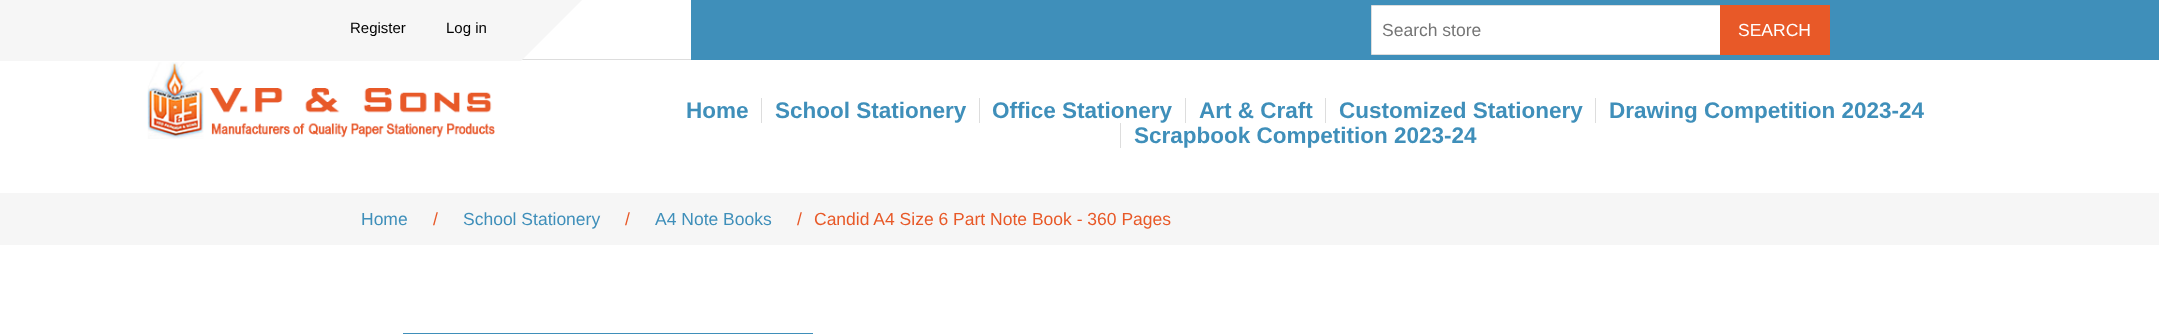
(async () => {
  const canvas = document.querySelector("canvas");
  canvas.width = 2159;
  canvas.height = 334;
  const ctx = canvas.getContext("2d");
  ctx.miterLimit = 4;
  ctx.fontKerning = "normal";
  async function loadImage(src) {
    const img = new Image();
    img.src = src;
    await img.decode();
    return img;
  }
  let path;

  ctx.fillStyle = "#ffffff";
  ctx.fillRect(0, 0, 2159, 334);
  ctx.fillStyle = "#dddddd";
  ctx.fillRect(522, 59, 169, 1);
  ctx.fillStyle = "#f6f6f6";
  ctx.fillRect(0, 0, 521, 61);
  path = new Path2D("M521 0H582L521 61Z");
  ctx.fill(path);
  ctx.fillStyle = "#3f8fba";
  ctx.fillRect(691, 0, 1468, 60);
  ctx.fillStyle = "#ffffff";
  ctx.beginPath();
  ctx.rect(1371.5, 5.5, 349, 49);
  ctx.fill();
  ctx.strokeStyle = "#dddddd";
  ctx.stroke();
  ctx.fillStyle = "#e85928";
  ctx.fillRect(1720, 5, 110, 50);
  ctx.drawImage(await loadImage("img/1.png"), 147, 62, 348, 77);
  for (const [x, y, w, h, color] of [
    [761, 98, 1, 25, "#dddddd"],
    [979, 98, 1, 25, "#dddddd"],
    [1185, 98, 1, 25, "#dddddd"],
    [1325, 98, 1, 25, "#dddddd"],
    [1595, 98, 1, 25, "#dddddd"],
    [1120, 123, 1, 25, "#dddddd"],
    [0, 193, 2159, 52, "#f6f6f6"],
  ]) {
    ctx.fillStyle = color;
    ctx.fillRect(x, y, w, h);
  }
  ctx.strokeStyle = "#3f8fba";
  ctx.lineWidth = 8;
  ctx.strokeRect(407, 337, 402, 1);
  ctx.font = "15px Liberation Sans";
  ctx.fillStyle = "#000000";
  ctx.fillText("Register", 350, 33);
  ctx.fillText("Log in", 446, 33);
  ctx.font = "17.5px Liberation Sans";
  ctx.fillStyle = "#757575";
  ctx.fillText("Search store", 1382, 36);
  ctx.fillStyle = "#ffffff";
  ctx.fillText("SEARCH", 1738, 36);
  ctx.font = "bold 22.5px Liberation Sans";
  ctx.fillStyle = "#3f8fba";
  for (const [text, x, y] of [
    ["Home", 686, 118],
    ["School Stationery", 775, 118],
    ["Office Stationery", 992, 118],
    ["Art & Craft", 1199, 118],
    ["Customized Stationery", 1339, 118],
    ["Drawing Competition 2023-24", 1609, 118],
    ["Scrapbook Competition 2023-24", 1134, 143],
  ]) {
    ctx.fillText(text, x, y);
  }
  ctx.font = "17.5px Liberation Sans";
  ctx.fillText("Home", 361, 225);
  ctx.fillStyle = "#e85928";
  ctx.fillText("/", 433, 225);
  ctx.fillStyle = "#3f8fba";
  ctx.fillText("School Stationery", 463, 225);
  ctx.fillStyle = "#e85928";
  ctx.fillText("/", 625, 225);
  ctx.fillStyle = "#3f8fba";
  ctx.fillText("A4 Note Books", 655, 225);
  ctx.fillStyle = "#e85928";
  ctx.fillText("/", 797, 225);
  ctx.fillText("Candid A4 Size 6 Part Note Book - 360 Pages", 814, 225);
})();
